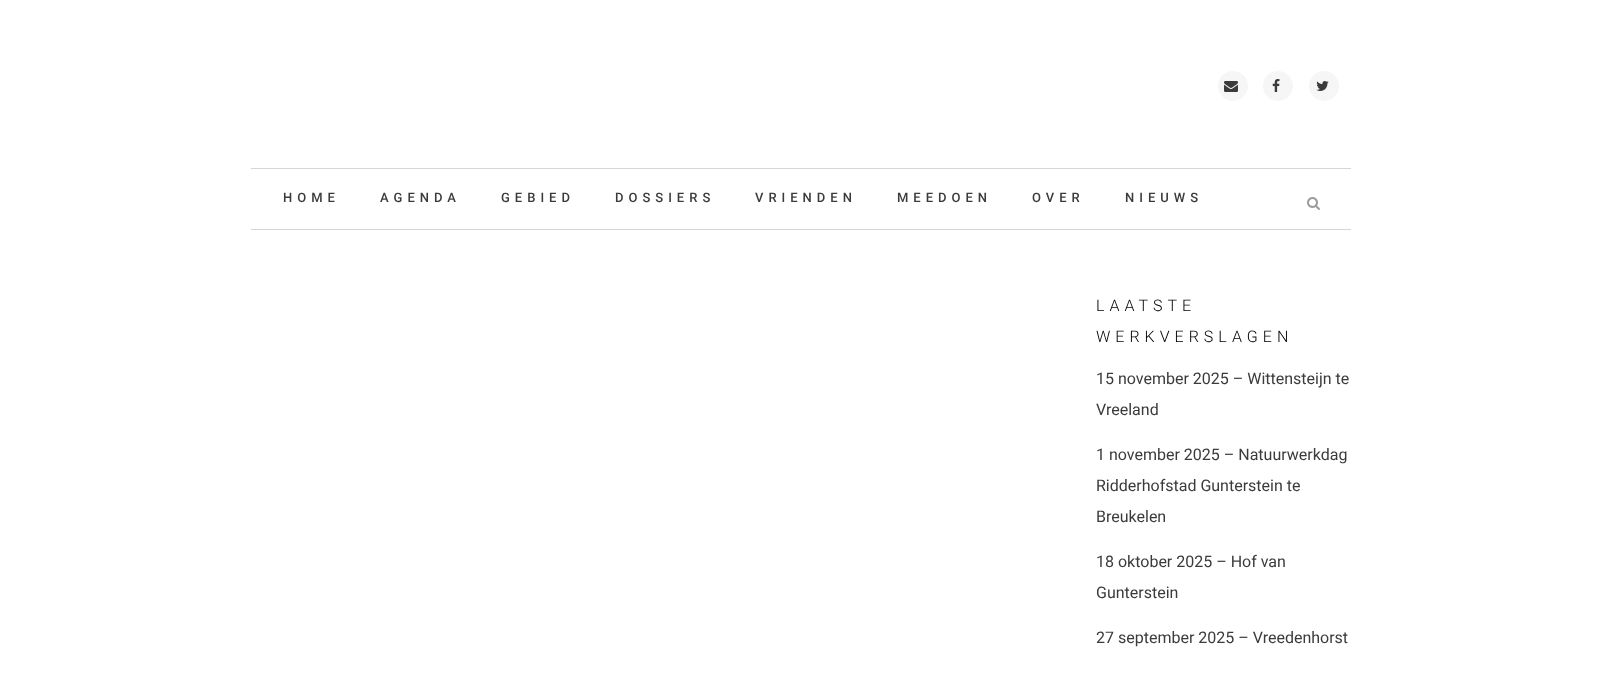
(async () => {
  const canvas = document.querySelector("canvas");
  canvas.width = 1602;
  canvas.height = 682;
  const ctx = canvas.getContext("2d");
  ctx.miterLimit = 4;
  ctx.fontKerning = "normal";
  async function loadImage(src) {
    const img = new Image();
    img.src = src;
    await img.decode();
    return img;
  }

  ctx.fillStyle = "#ffffff";
  ctx.fillRect(0, 0, 1602, 682);
  ctx.fillStyle = "#d6d6d6";
  ctx.fillRect(251, 229, 1100, 1);
  ctx.fillStyle = "#f6f6f6";
  ctx.beginPath();
  ctx.arc(1233, 86, 15, 0, Math.PI * 2);
  ctx.fill();
  ctx.drawImage(await loadImage("img/1.png"), 1224, 81, 14, 11);
  ctx.beginPath();
  ctx.arc(1278, 86, 15, 0, Math.PI * 2);
  ctx.fill();
  ctx.drawImage(await loadImage("img/2.png"), 1272, 79, 8, 13);
  ctx.beginPath();
  ctx.arc(1324, 86, 15, 0, Math.PI * 2);
  ctx.fill();
  ctx.drawImage(await loadImage("img/3.png"), 1316, 81, 13, 10);
  ctx.fillStyle = "#d6d6d6";
  ctx.fillRect(251, 168, 1100, 1);
  ctx.drawImage(await loadImage("img/4.png"), 1307, 197, 13, 13);
  ctx.letterSpacing = "5px";
  ctx.font = "500 13px Roboto";
  ctx.fillStyle = "#3b3a3c";
  for (const [text, x, y] of [
    ["HOME", 283, 202],
    ["AGENDA", 380, 202],
    ["GEBIED", 501, 202],
    ["DOSSIERS", 615, 202],
    ["VRIENDEN", 755, 202],
    ["MEEDOEN", 897, 202],
    ["OVER", 1032, 202],
    ["NIEUWS", 1125, 202],
  ]) {
    ctx.fillText(text, x, y);
  }
  ctx.font = "300 16px Roboto";
  ctx.fillStyle = "#000000";
  ctx.fillText("LAATSTE", 1096, 311);
  ctx.fillText("WERKVERSLAGEN", 1096, 342);
  ctx.letterSpacing = "0px";
  ctx.font = "16px Roboto";
  ctx.fillStyle = "#3b3a3c";
  for (const [text, x, y] of [
    ["15 november 2025 – Wittensteijn te", 1096, 384],
    ["Vreeland", 1096, 415],
    ["1 november 2025 – Natuurwerkdag", 1096, 460],
    ["Ridderhofstad Gunterstein te", 1096, 491],
    ["Breukelen", 1096, 522],
    ["18 oktober 2025 – Hof van", 1096, 567],
    ["Gunterstein", 1096, 598],
    ["27 september 2025 – Vreedenhorst", 1096, 643],
  ]) {
    ctx.fillText(text, x, y);
  }
})();
